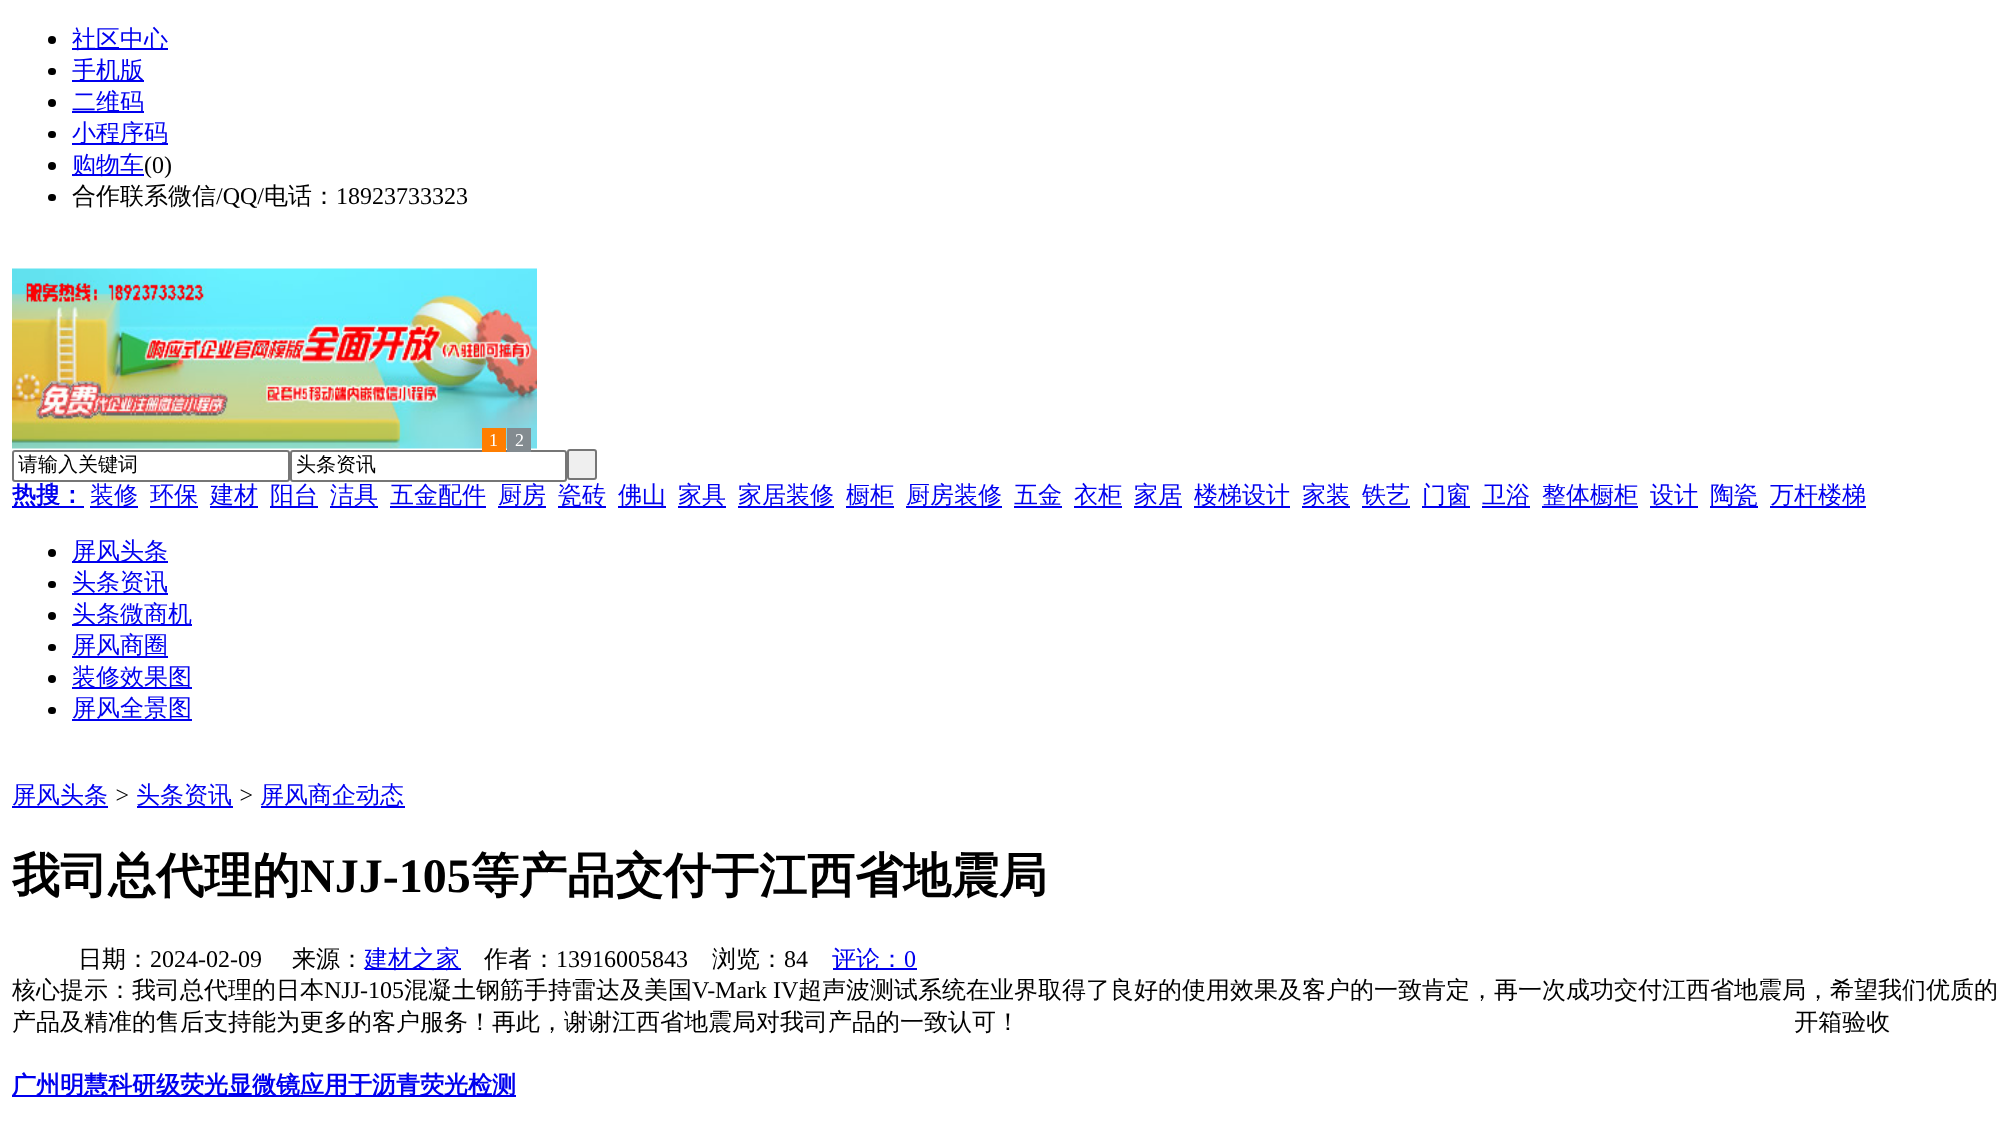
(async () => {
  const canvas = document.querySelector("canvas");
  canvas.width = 2015;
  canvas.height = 1136;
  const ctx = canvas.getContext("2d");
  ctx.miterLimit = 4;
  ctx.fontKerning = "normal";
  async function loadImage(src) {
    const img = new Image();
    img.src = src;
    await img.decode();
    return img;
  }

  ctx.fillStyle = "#ffffff";
  ctx.fillRect(0, 0, 2015, 1136);
  ctx.fillStyle = "#000000";
  ctx.beginPath();
  ctx.arc(52, 40, 4, 0, Math.PI * 2);
  ctx.fill();
  ctx.fillStyle = "#0000ee";
  ctx.fillRect(72, 48, 96, 2);
  ctx.fillStyle = "#000000";
  ctx.beginPath();
  ctx.roundRect(48, 68, 8, 7, 3.5);
  ctx.fill();
  ctx.fillStyle = "#0000ee";
  ctx.fillRect(72, 80, 72, 2);
  ctx.fillStyle = "#000000";
  ctx.beginPath();
  ctx.arc(52, 103, 4, 0, Math.PI * 2);
  ctx.fill();
  ctx.fillStyle = "#0000ee";
  ctx.fillRect(72, 111, 72, 2);
  ctx.fillStyle = "#000000";
  ctx.beginPath();
  ctx.roundRect(48, 131, 8, 7, 3.5);
  ctx.fill();
  ctx.fillStyle = "#0000ee";
  ctx.fillRect(72, 143, 96, 2);
  ctx.fillStyle = "#000000";
  ctx.beginPath();
  ctx.arc(52, 166, 4, 0, Math.PI * 2);
  ctx.fill();
  ctx.fillStyle = "#0000ee";
  ctx.fillRect(72, 174, 72, 2);
  ctx.fillStyle = "#000000";
  ctx.beginPath();
  ctx.roundRect(48, 194, 8, 7, 3.5);
  ctx.fill();
  ctx.drawImage(await loadImage("img/1.png"), 12, 268, 525, 181);
  ctx.beginPath();
  ctx.roundRect(291, 451, 275, 30, 2);
  ctx.strokeStyle = "#767676";
  ctx.lineWidth = 2;
  ctx.stroke();
  ctx.fillStyle = "#ff7e00";
  ctx.fillRect(482, 428, 24, 24);
  ctx.fillStyle = "#838b90";
  ctx.fillRect(507, 428, 24, 24);
  ctx.beginPath();
  ctx.roundRect(13, 451, 276, 30, 2);
  ctx.stroke();
  ctx.fillStyle = "#efefef";
  ctx.beginPath();
  ctx.roundRect(568, 450, 28, 29, 2);
  ctx.fill();
  ctx.stroke();
  for (const [x, y, w, h, color] of [
    [12, 506, 72, 2, "#0000ee"],
    [90, 506, 48, 2, "#0000ee"],
    [150, 506, 48, 2, "#0000ee"],
    [210, 506, 48, 2, "#0000ee"],
    [270, 506, 48, 2, "#0000ee"],
    [330, 506, 48, 2, "#0000ee"],
    [390, 506, 96, 2, "#0000ee"],
    [498, 506, 48, 2, "#0000ee"],
    [558, 506, 48, 2, "#0000ee"],
    [618, 506, 48, 2, "#0000ee"],
    [678, 506, 48, 2, "#0000ee"],
    [738, 506, 96, 2, "#0000ee"],
    [846, 506, 48, 2, "#0000ee"],
    [906, 506, 96, 2, "#0000ee"],
    [1014, 506, 48, 2, "#0000ee"],
    [1074, 506, 48, 2, "#0000ee"],
    [1134, 506, 48, 2, "#0000ee"],
    [1194, 506, 96, 2, "#0000ee"],
    [1302, 506, 48, 2, "#0000ee"],
    [1362, 506, 48, 2, "#0000ee"],
    [1422, 506, 48, 2, "#0000ee"],
    [1482, 506, 48, 2, "#0000ee"],
    [1542, 506, 96, 2, "#0000ee"],
    [1650, 506, 48, 2, "#0000ee"],
    [1710, 506, 48, 2, "#0000ee"],
    [1770, 506, 96, 2, "#0000ee"],
  ]) {
    ctx.fillStyle = color;
    ctx.fillRect(x, y, w, h);
  }
  ctx.fillStyle = "#000000";
  ctx.beginPath();
  ctx.arc(52, 553, 4, 0, Math.PI * 2);
  ctx.fill();
  ctx.fillStyle = "#0000ee";
  ctx.fillRect(72, 561, 96, 2);
  ctx.fillStyle = "#000000";
  ctx.beginPath();
  ctx.roundRect(48, 581, 8, 7, 3.5);
  ctx.fill();
  ctx.fillStyle = "#0000ee";
  ctx.fillRect(72, 593, 96, 2);
  ctx.fillStyle = "#000000";
  ctx.beginPath();
  ctx.arc(52, 616, 4, 0, Math.PI * 2);
  ctx.fill();
  ctx.fillStyle = "#0000ee";
  ctx.fillRect(72, 624, 120, 2);
  ctx.fillStyle = "#000000";
  ctx.beginPath();
  ctx.roundRect(48, 644, 8, 7, 3.5);
  ctx.fill();
  ctx.fillStyle = "#0000ee";
  ctx.fillRect(72, 656, 96, 2);
  ctx.fillStyle = "#000000";
  ctx.beginPath();
  ctx.arc(52, 679, 4, 0, Math.PI * 2);
  ctx.fill();
  ctx.fillStyle = "#0000ee";
  ctx.fillRect(72, 687, 120, 2);
  ctx.fillStyle = "#000000";
  ctx.beginPath();
  ctx.roundRect(48, 707, 8, 7, 3.5);
  ctx.fill();
  for (const [x, y, w, h, color] of [
    [72, 719, 120, 2, "#0000ee"],
    [12, 806, 96, 2, "#0000ee"],
    [137, 806, 96, 2, "#0000ee"],
    [261, 806, 144, 2, "#0000ee"],
    [365, 968, 96, 2, "#0000ee"],
    [833, 968, 84, 2, "#0000ee"],
    [12, 1095, 504, 2, "#0000ee"],
  ]) {
    ctx.fillStyle = color;
    ctx.fillRect(x, y, w, h);
  }
  ctx.font = "500 24px WenQuanYi Zen Hei";
  for (const [text, x, y] of [
    ["社区中心", 72, 47],
    ["手机版", 72, 78],
    ["二维码", 72, 110],
    ["小程序码", 72, 141],
    ["购物车", 72, 173],
  ]) {
    ctx.fillText(text, x, y);
  }
  ctx.font = "24px Liberation Serif";
  ctx.fillStyle = "#000000";
  ctx.fillText("(0)", 144, 173);
  ctx.font = "500 24px WenQuanYi Zen Hei";
  ctx.fillText("合作联系微信", 72, 204);
  ctx.font = "24px Liberation Serif";
  ctx.fillText("/QQ/", 216, 204);
  ctx.font = "500 24px WenQuanYi Zen Hei";
  ctx.fillText("电话：", 264, 204);
  ctx.font = "24px Liberation Serif";
  ctx.fillText("18923733323", 336, 204);
  ctx.font = "18px Liberation Serif";
  ctx.fillStyle = "#ffffff";
  ctx.fillText("1", 489, 446);
  ctx.fillText("2", 515, 446);
  ctx.font = "500 20px WenQuanYi Zen Hei";
  ctx.fillStyle = "#000000";
  ctx.fillText("请输入关键词", 18, 471);
  ctx.fillText("头条资讯", 296, 471);
  ctx.font = "bold 24px WenQuanYi Zen Hei";
  ctx.fillStyle = "#0000ee";
  ctx.fillText("热搜：", 12, 503);
  ctx.font = "500 24px WenQuanYi Zen Hei";
  for (const [text, x, y] of [
    ["装修", 90, 503],
    ["环保", 150, 503],
    ["建材", 210, 503],
    ["阳台", 270, 503],
    ["洁具", 330, 503],
    ["五金配件", 390, 503],
    ["厨房", 498, 503],
    ["瓷砖", 558, 503],
    ["佛山", 618, 503],
    ["家具", 678, 503],
    ["家居装修", 738, 503],
    ["橱柜", 846, 503],
    ["厨房装修", 906, 503],
    ["五金", 1014, 503],
    ["衣柜", 1074, 503],
    ["家居", 1134, 503],
    ["楼梯设计", 1194, 503],
    ["家装", 1302, 503],
    ["铁艺", 1362, 503],
    ["门窗", 1422, 503],
    ["卫浴", 1482, 503],
    ["整体橱柜", 1542, 503],
    ["设计", 1650, 503],
    ["陶瓷", 1710, 503],
    ["万杆楼梯", 1770, 503],
    ["屏风头条", 72, 559],
    ["头条资讯", 72, 590],
    ["头条微商机", 72, 622],
    ["屏风商圈", 72, 653],
    ["装修效果图", 72, 685],
    ["屏风全景图", 72, 716],
    ["屏风头条", 12, 803],
  ]) {
    ctx.fillText(text, x, y);
  }
  ctx.font = "italic 24px Liberation Serif";
  ctx.fillStyle = "#000000";
  ctx.fillText(">", 114, 803);
  ctx.font = "500 24px WenQuanYi Zen Hei";
  ctx.fillStyle = "#0000ee";
  ctx.fillText("头条资讯", 136, 803);
  ctx.font = "italic 24px Liberation Serif";
  ctx.fillStyle = "#000000";
  ctx.fillText(">", 238, 803);
  ctx.font = "500 24px WenQuanYi Zen Hei";
  ctx.fillStyle = "#0000ee";
  ctx.fillText("屏风商企动态", 260, 803);
  ctx.font = "bold 48px WenQuanYi Zen Hei";
  ctx.fillStyle = "#000000";
  ctx.fillText("我司总代理的", 12, 892);
  ctx.font = "bold 48px Liberation Serif";
  ctx.fillText("NJJ-105", 300, 892);
  ctx.font = "bold 48px WenQuanYi Zen Hei";
  ctx.fillText("等产品交付于江西省地震局", 471, 892);
  ctx.font = "500 24px WenQuanYi Zen Hei";
  ctx.fillText("日期：", 78, 967);
  ctx.font = "24px Liberation Serif";
  ctx.fillText("2024-02-09", 150, 967);
  ctx.font = "500 24px WenQuanYi Zen Hei";
  ctx.fillText("来源：", 292, 967);
  ctx.fillStyle = "#0000ee";
  ctx.fillText("建材之家", 364, 967);
  ctx.fillStyle = "#000000";
  ctx.fillText("作者：", 484, 967);
  ctx.font = "24px Liberation Serif";
  ctx.fillText("13916005843", 556, 967);
  ctx.font = "500 24px WenQuanYi Zen Hei";
  ctx.fillText("浏览：", 712, 967);
  ctx.font = "24px Liberation Serif";
  ctx.fillText("84", 784, 967);
  ctx.font = "500 24px WenQuanYi Zen Hei";
  ctx.fillStyle = "#0000ee";
  ctx.fillText("评论：", 832, 967);
  ctx.font = "24px Liberation Serif";
  ctx.fillText("0", 904, 967);
  ctx.font = "500 24px WenQuanYi Zen Hei";
  ctx.fillStyle = "#000000";
  ctx.fillText("核心提示：我司总代理的日本", 12, 998);
  ctx.font = "24px Liberation Serif";
  ctx.fillText("NJJ-105", 324, 998);
  ctx.font = "500 24px WenQuanYi Zen Hei";
  ctx.fillText("混凝土钢筋手持雷达及美国", 404, 998);
  ctx.font = "24px Liberation Serif";
  ctx.fillText("V-Mark IV", 692, 998);
  ctx.font = "500 24px WenQuanYi Zen Hei";
  ctx.fillText("超声波测试系统在业界取得了良好的使用效果及客户的一致肯定，再一次成功交付江西省地震局，希望我们优质的", 798, 998);
  ctx.wordSpacing = "-1px";
  ctx.fillText("产品及精准的售后支持能为更多的客户服务！再此，谢谢江西省地震局对我司产品的一致认可！　　　　　　　　　　　　　　　　　　　　　　　　　　　　　　　　 开箱验收", 12, 1030);
  ctx.wordSpacing = "0px";
  ctx.font = "bold 24px WenQuanYi Zen Hei";
  ctx.fillStyle = "#0000ee";
  ctx.fillText("广州明慧科研级荧光显微镜应用于沥青荧光检测", 12, 1093);
})();
